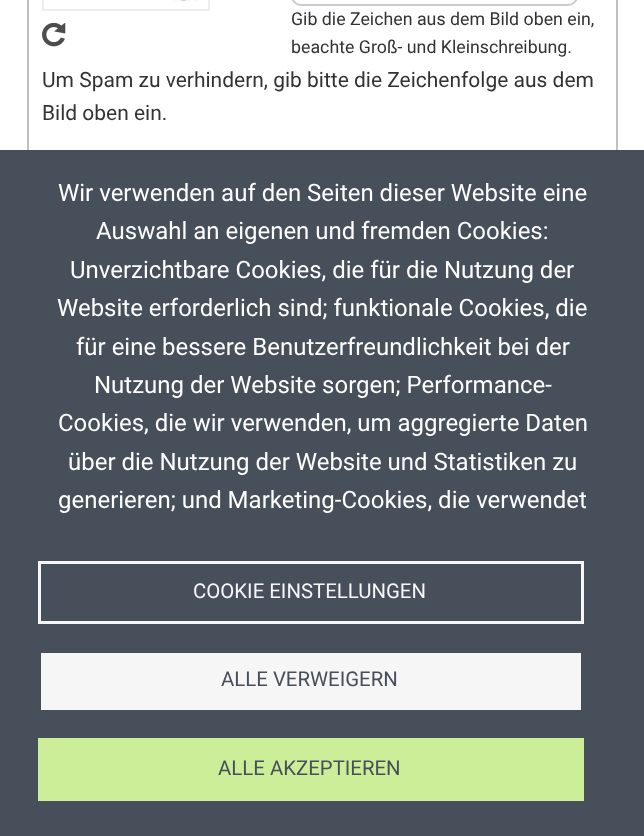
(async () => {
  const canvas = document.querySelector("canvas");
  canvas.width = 644;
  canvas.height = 836;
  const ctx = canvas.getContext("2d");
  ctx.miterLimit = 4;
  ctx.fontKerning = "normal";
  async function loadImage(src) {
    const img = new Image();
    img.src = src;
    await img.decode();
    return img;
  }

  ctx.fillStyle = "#ffffff";
  ctx.fillRect(0, 0, 644, 836);
  ctx.strokeStyle = "#c0c0c0";
  ctx.lineWidth = 2;
  ctx.strokeRect(28, -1, 589, 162);
  ctx.strokeStyle = "#eeeeee";
  ctx.strokeRect(43, -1, 166, 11);
  ctx.drawImage(await loadImage("img/1.png"), 173, 0, 25, 2);
  ctx.drawImage(await loadImage("img/2.png"), 42, 23, 24, 24);
  ctx.beginPath();
  ctx.roundRect(292, -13, 285, 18, 11);
  ctx.strokeStyle = "#c8ccd1";
  ctx.stroke();
  ctx.fillStyle = "#474f5a";
  ctx.fillRect(0, 150, 644, 686);
  ctx.strokeStyle = "#f6f6f7";
  ctx.lineWidth = 3;
  ctx.strokeRect(39.5, 562.5, 543, 60);
  ctx.fillStyle = "#f6f6f7";
  ctx.fillRect(41, 653, 540, 57);
  ctx.fillStyle = "#cdee99";
  ctx.fillRect(38, 738, 546, 63);
  ctx.font = "17.8px Roboto";
  ctx.fillStyle = "#333333";
  ctx.fillText("Gib die Zeichen aus dem Bild oben ein,", 291, 25);
  ctx.fillText("beachte Groß- und Kleinschreibung.", 291, 53);
  ctx.font = "21px Roboto";
  ctx.fillText("Um Spam zu verhindern, gib bitte die Zeichenfolge aus dem", 42, 87);
  ctx.fillText("Bild oben ein.", 42, 120);
  ctx.font = "24px Roboto";
  ctx.fillStyle = "#ffffff";
  for (const [text, x, y] of [
    ["Wir verwenden auf den Seiten dieser Website eine", 58, 201],
    ["Auswahl an eigenen und fremden Cookies:", 96, 239],
    ["Unverzichtbare Cookies, die für die Nutzung der", 70, 278],
    ["Website erforderlich sind; funktionale Cookies, die", 57, 316],
    ["für eine bessere Benutzerfreundlichkeit bei der", 76, 355],
    ["Nutzung der Website sorgen; Performance-", 94, 393],
    ["Cookies, die wir verwenden, um aggregierte Daten", 58, 431],
    ["über die Nutzung der Website und Statistiken zu", 68, 470],
    ["generieren; und Marketing-Cookies, die verwendet", 58, 508],
  ]) {
    ctx.fillText(text, x, y);
  }
  ctx.font = "20.4px Roboto";
  ctx.fillStyle = "#f6f6f7";
  ctx.fillText("COOKIE EINSTELLUNGEN", 193, 598);
  ctx.fillStyle = "#474f5a";
  ctx.fillText("ALLE VERWEIGERN", 221, 686);
  ctx.fillText("ALLE AKZEPTIEREN", 218, 775);
})();
